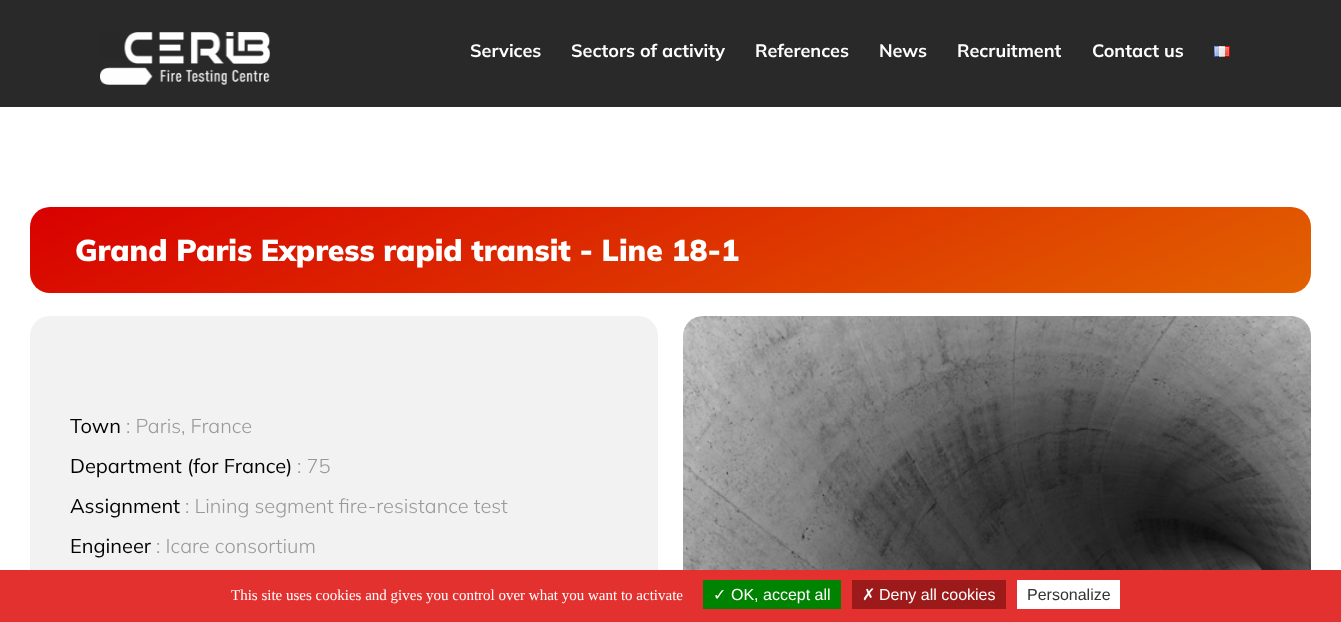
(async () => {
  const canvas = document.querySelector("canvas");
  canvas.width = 1341;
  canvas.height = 622;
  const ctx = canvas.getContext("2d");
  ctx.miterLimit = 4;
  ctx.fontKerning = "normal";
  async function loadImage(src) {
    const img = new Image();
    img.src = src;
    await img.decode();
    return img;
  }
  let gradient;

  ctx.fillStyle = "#ffffff";
  ctx.fillRect(0, 0, 1341, 622);
  ctx.fillStyle = "#292929";
  ctx.fillRect(0, 0, 1341, 107);
  ctx.drawImage(await loadImage("img/1.png"), 100, 32, 170, 53);
  ctx.drawImage(await loadImage("img/2.png"), 1214, 46, 16, 11);
  gradient = ctx.createLinearGradient(540, -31, 801, 531);
  gradient.addColorStop(0, "#d80000");
  gradient.addColorStop(1, "#e26200");
  ctx.fillStyle = gradient;
  ctx.beginPath();
  ctx.roundRect(30, 207, 1281, 86, 20);
  ctx.fill();
  ctx.fillStyle = "#f2f2f2";
  ctx.beginPath();
  ctx.roundRect(30, 316, 628, 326, 20);
  ctx.fill();
  ctx.drawImage(await loadImage("img/3.png"), 683, 316, 628, 254);
  for (const [x, y, w, h, color] of [
    [0, 570, 1341, 52, "#e3312f"],
    [703, 580, 138, 29, "#008300"],
    [852, 580, 154, 29, "#9c1a1a"],
    [1017, 580, 103, 29, "#ffffff"],
  ]) {
    ctx.fillStyle = color;
    ctx.fillRect(x, y, w, h);
  }
  ctx.font = "bold 18px Mulish";
  for (const [text, x, y] of [
    ["Services", 470, 57],
    ["Sectors of activity", 571, 57],
    ["References", 755, 57],
    ["News", 879, 57],
    ["Recruitment", 957, 57],
    ["Contact us", 1092, 57],
  ]) {
    ctx.fillText(text, x, y);
  }
  ctx.font = "900 30px Mulish";
  ctx.fillText("Grand Paris Express rapid transit - Line 18-1", 75, 261);
  ctx.font = "20px Mulish";
  ctx.fillStyle = "#000000";
  ctx.fillText("Town", 70, 433);
  ctx.font = "300 20px Mulish";
  ctx.fillStyle = "#999999";
  ctx.fillText(": Paris, France", 126, 433);
  ctx.font = "20px Mulish";
  ctx.fillStyle = "#000000";
  ctx.fillText("Department (for France)", 70, 473);
  ctx.font = "300 20px Mulish";
  ctx.fillStyle = "#999999";
  ctx.fillText(": 75", 297, 473);
  ctx.font = "20px Mulish";
  ctx.fillStyle = "#000000";
  ctx.fillText("Assignment", 70, 513);
  ctx.font = "300 20px Mulish";
  ctx.fillStyle = "#999999";
  ctx.fillText(": Lining segment fire-resistance test", 185, 513);
  ctx.font = "20px Mulish";
  ctx.fillStyle = "#000000";
  ctx.fillText("Engineer", 70, 553);
  ctx.font = "300 20px Mulish";
  ctx.fillStyle = "#999999";
  ctx.fillText(": Icare consortium", 156, 553);
  ctx.font = "15px Liberation Serif";
  ctx.fillStyle = "#ffffff";
  ctx.fillText("This site uses cookies and gives you control over what you want to activate", 231, 600);
  ctx.font = "16px DejaVu Sans";
  ctx.fillText("✓", 713, 600);
  ctx.font = "16px Liberation Sans";
  ctx.fillText("OK, accept all", 731, 600);
  ctx.font = "16px DejaVu Sans";
  ctx.fillText("✗", 862, 600);
  ctx.font = "16px Liberation Sans";
  ctx.fillText("Deny all cookies", 879, 600);
  ctx.fillStyle = "#333333";
  ctx.fillText("Personalize", 1027, 600);
})();
